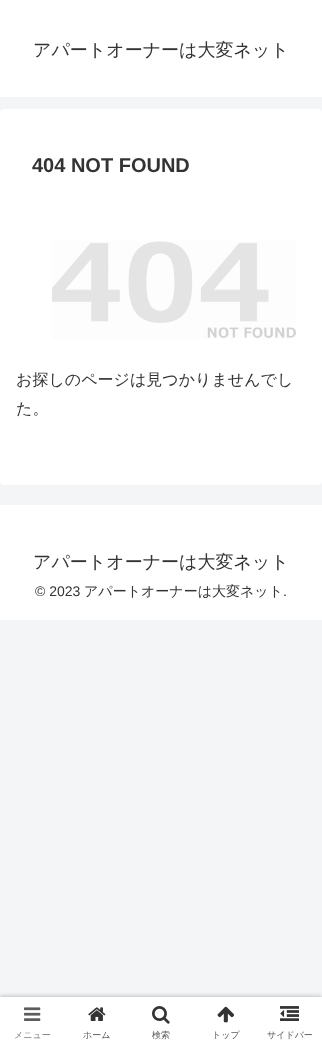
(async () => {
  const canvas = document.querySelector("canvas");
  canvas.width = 322;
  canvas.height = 1047;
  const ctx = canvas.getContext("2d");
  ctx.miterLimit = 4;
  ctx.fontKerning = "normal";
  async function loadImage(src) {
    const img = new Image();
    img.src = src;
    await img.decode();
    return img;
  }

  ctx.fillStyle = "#f4f5f7";
  ctx.fillRect(0, 0, 322, 1047);
  ctx.fillStyle = "#ffffff";
  ctx.fillRect(0, 0, 322, 97);
  ctx.beginPath();
  ctx.roundRect(0, 109, 322, 376, 4);
  ctx.fill();
  ctx.drawImage(await loadImage("img/1.png"), 52, 241, 244, 98);
  ctx.fillRect(0, 505, 322, 115);
  ctx.fillStyle = "#a9a9a9";
  ctx.filter = "blur(2.5px)";
  ctx.beginPath();
  ctx.rect(0, 997, 322, 50);
  ctx.fill();
  ctx.filter = "none";
  ctx.fillStyle = "#ffffff";
  ctx.fillRect(0, 997, 322, 50);
  ctx.drawImage(await loadImage("img/2.png"), 24, 1007, 17, 14);
  ctx.drawImage(await loadImage("img/3.png"), 88, 1007, 18, 14);
  ctx.drawImage(await loadImage("img/4.png"), 152, 1006, 18, 18);
  ctx.drawImage(await loadImage("img/5.png"), 217, 1006, 17, 17);
  ctx.drawImage(await loadImage("img/6.png"), 280, 1006, 19, 15);
  ctx.font = "500 18px WenQuanYi Zen Hei";
  ctx.fillStyle = "#333333";
  ctx.fillText("アパートオーナーは大変ネット", 33, 56);
  ctx.font = "bold 20px Liberation Sans";
  ctx.fillText("404 NOT FOUND", 32, 172);
  ctx.font = "500 16px WenQuanYi Zen Hei";
  ctx.fillText("お探しのページは見つかりませんでし", 16, 385);
  ctx.fillText("た。", 16, 414);
  ctx.font = "500 18px WenQuanYi Zen Hei";
  ctx.fillText("アパートオーナーは大変ネット", 33, 568);
  ctx.font = "14px Liberation Sans";
  ctx.fillText("© 2023", 35, 596);
  ctx.font = "500 14px WenQuanYi Zen Hei";
  ctx.fillText("アパートオーナーは大変ネット", 84, 596);
  ctx.font = "14px Liberation Sans";
  ctx.fillText(".", 283, 596);
  ctx.font = "500 9px WenQuanYi Zen Hei";
  ctx.fillStyle = "#7c7c7c";
  ctx.fillText("メニュー", 14, 1038);
  ctx.fillStyle = "#5c5c5c";
  for (const [text, x, y] of [
    ["ホーム", 83, 1038],
    ["検索", 152, 1038],
    ["トップ", 212, 1038],
    ["サイドバー", 267, 1038],
  ]) {
    ctx.fillText(text, x, y);
  }
})();
